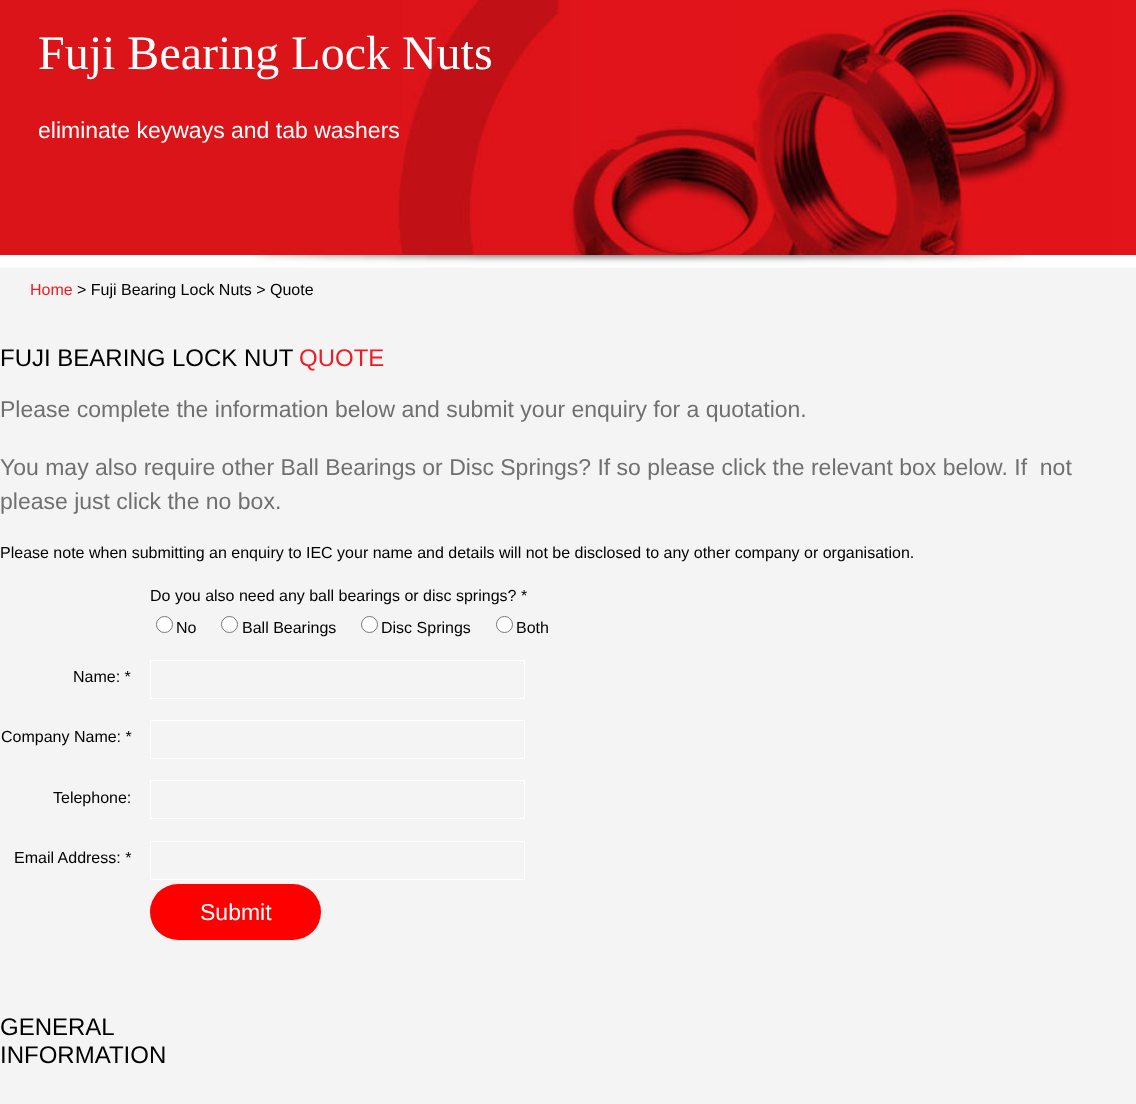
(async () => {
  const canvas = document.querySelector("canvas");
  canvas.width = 1136;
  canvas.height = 1104;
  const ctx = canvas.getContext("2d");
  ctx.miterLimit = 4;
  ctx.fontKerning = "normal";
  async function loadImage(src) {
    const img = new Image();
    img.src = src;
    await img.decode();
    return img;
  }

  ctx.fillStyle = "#f4f4f4";
  ctx.fillRect(0, 0, 1136, 1104);
  ctx.fillStyle = "#db1419";
  ctx.fillRect(0, 0, 398, 255);
  ctx.drawImage(await loadImage("img/1.png"), 398, 0, 738, 255);
  ctx.drawImage(await loadImage("img/2.png"), 0, 255, 1136, 13);
  ctx.fillStyle = "#ffffff";
  ctx.beginPath();
  ctx.arc(164.5, 624.5, 8, 0, Math.PI * 2);
  ctx.fill();
  ctx.strokeStyle = "#767676";
  ctx.stroke();
  ctx.beginPath();
  ctx.arc(229.5, 624.5, 8, 0, Math.PI * 2);
  ctx.fill();
  ctx.stroke();
  ctx.beginPath();
  ctx.arc(369.5, 624.5, 8, 0, Math.PI * 2);
  ctx.fill();
  ctx.stroke();
  ctx.beginPath();
  ctx.arc(504.5, 624.5, 8, 0, Math.PI * 2);
  ctx.fill();
  ctx.stroke();
  ctx.strokeStyle = "#ffffff";
  ctx.strokeRect(150.5, 660.5, 374, 38);
  ctx.strokeRect(150.5, 720.5, 374, 38);
  ctx.strokeRect(150.5, 780.5, 374, 38);
  ctx.strokeRect(150.5, 841.5, 374, 38);
  ctx.fillStyle = "#ff0000";
  ctx.beginPath();
  ctx.roundRect(150, 884, 171, 56, 28);
  ctx.fill();
  ctx.font = "48px Liberation Serif";
  ctx.fillStyle = "#ffffff";
  ctx.fillText("Fuji Bearing Lock Nuts", 38, 69);
  ctx.font = "23px Liberation Sans";
  ctx.fillText("eliminate keyways and tab washers", 38, 138);
  ctx.font = "16px Liberation Sans";
  ctx.fillStyle = "#ed1c22";
  ctx.fillText("Home", 30, 295);
  ctx.fillStyle = "#000000";
  ctx.fillText("> Fuji Bearing Lock Nuts > Quote", 77, 295);
  ctx.font = "24px Liberation Sans";
  ctx.fillText("FUJI BEARING LOCK NUT", 0, 366);
  ctx.fillStyle = "#ed1c22";
  ctx.fillText("QUOTE", 299, 366);
  ctx.font = "23px Liberation Sans";
  ctx.fillStyle = "#707070";
  for (const [text, x, y] of [
    ["Please complete the information below and submit your enquiry for a quotation.", 0, 417],
    ["You may also require other Ball Bearings or Disc Springs? If so please click the relevant box below. If  not", 0, 475],
    ["please just click the no box.", 0, 509],
  ]) {
    ctx.fillText(text, x, y);
  }
  ctx.font = "16px Liberation Sans";
  ctx.fillStyle = "#000000";
  for (const [text, x, y] of [
    ["Please note when submitting an enquiry to IEC your name and details will not be disclosed to any other company or organisation.", 0, 558],
    ["Do you also need any ball bearings or disc springs? *", 150, 601],
    ["No", 176, 633],
    ["Ball Bearings", 242, 633],
    ["Disc Springs", 381, 633],
    ["Both", 516, 633],
    ["Name: *", 73, 682],
    ["Company Name: *", 1, 742],
    ["Telephone:", 53, 803],
    ["Email Address: *", 14, 863],
  ]) {
    ctx.fillText(text, x, y);
  }
  ctx.font = "23px Liberation Sans";
  ctx.fillStyle = "#ffffff";
  ctx.fillText("Submit", 200, 920);
  ctx.font = "24px Liberation Sans";
  ctx.fillStyle = "#000000";
  ctx.fillText("GENERAL", 0, 1035);
  ctx.fillText("INFORMATION", 0, 1063);
})();
